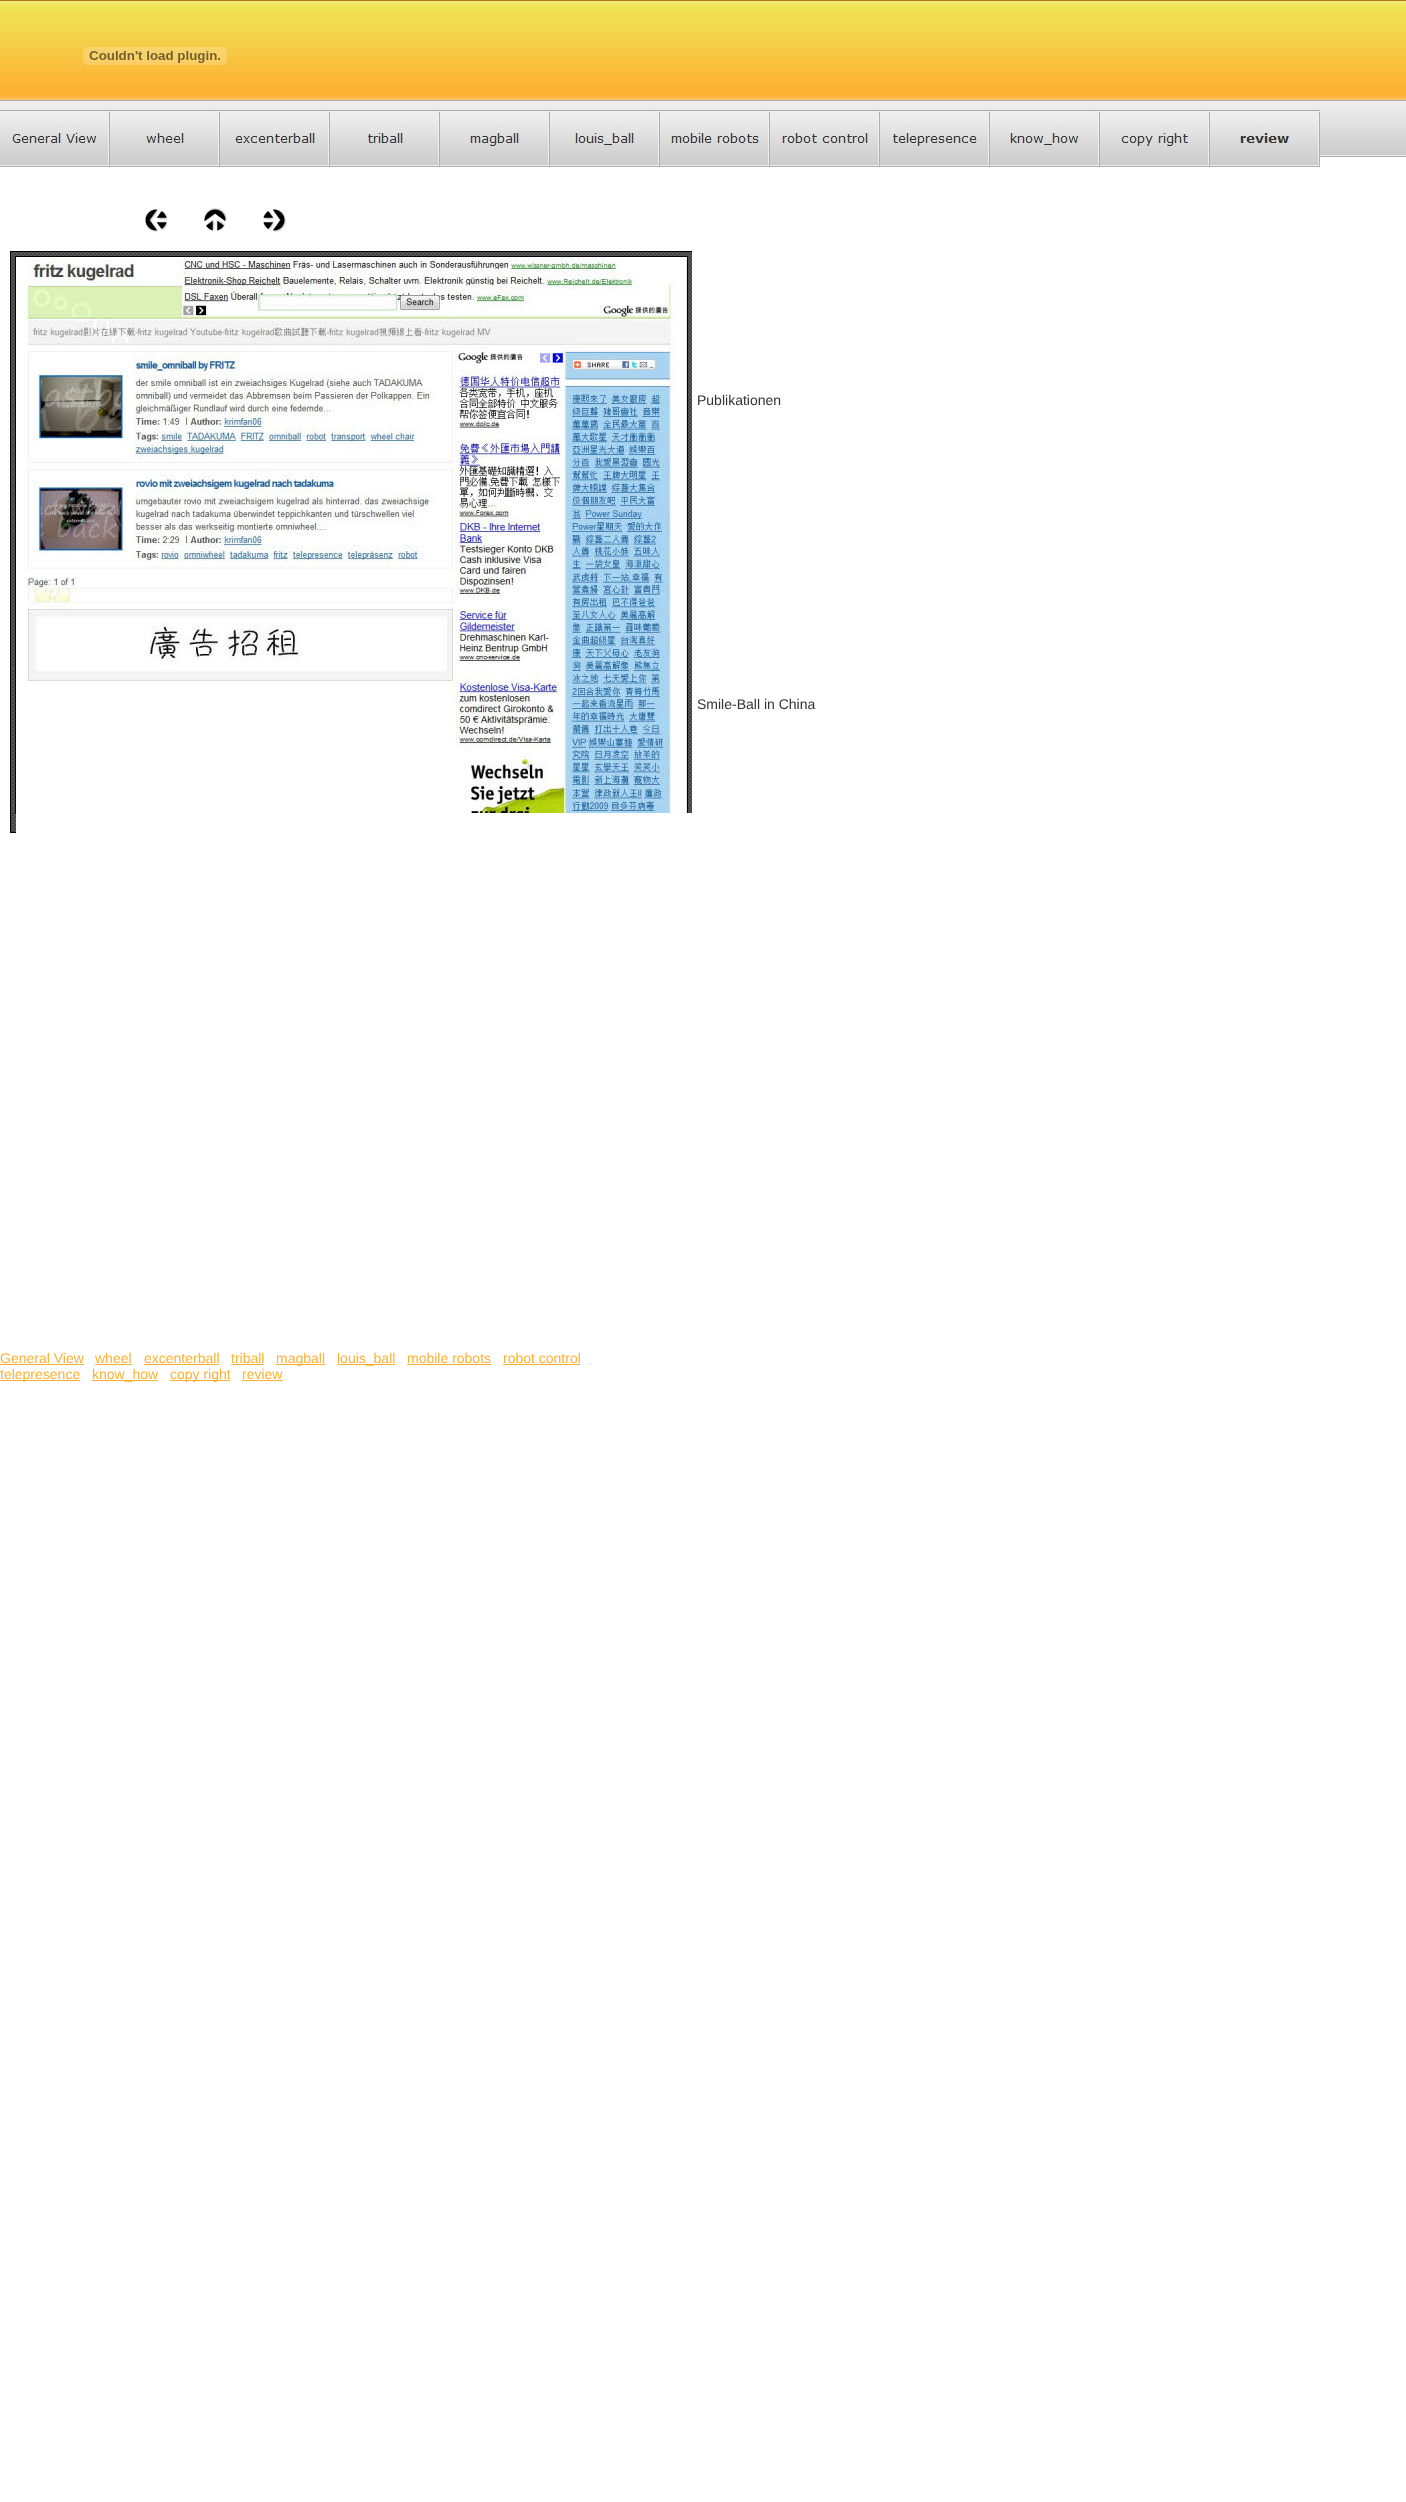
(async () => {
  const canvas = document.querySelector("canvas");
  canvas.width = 1406;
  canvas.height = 2502;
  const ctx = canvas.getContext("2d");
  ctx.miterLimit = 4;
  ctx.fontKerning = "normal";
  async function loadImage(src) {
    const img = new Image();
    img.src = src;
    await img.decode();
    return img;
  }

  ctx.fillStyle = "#ffffff";
  ctx.fillRect(0, 0, 1406, 2502);
  ctx.drawImage(await loadImage("img/1.png"), 0, 0, 1406, 157);
  ctx.drawImage(await loadImage("img/2.png"), 83, 47, 144, 18);
  ctx.drawImage(await loadImage("img/3.png"), 0, 110, 110, 57);
  ctx.drawImage(await loadImage("img/4.png"), 110, 110, 110, 57);
  ctx.drawImage(await loadImage("img/5.png"), 220, 110, 110, 57);
  ctx.drawImage(await loadImage("img/6.png"), 330, 110, 110, 57);
  ctx.drawImage(await loadImage("img/7.png"), 440, 110, 110, 57);
  ctx.drawImage(await loadImage("img/8.png"), 550, 110, 110, 57);
  ctx.drawImage(await loadImage("img/9.png"), 660, 110, 110, 57);
  ctx.drawImage(await loadImage("img/10.png"), 770, 110, 110, 57);
  ctx.drawImage(await loadImage("img/11.png"), 880, 110, 110, 57);
  ctx.drawImage(await loadImage("img/12.png"), 990, 110, 110, 57);
  ctx.drawImage(await loadImage("img/13.png"), 1100, 110, 110, 57);
  ctx.drawImage(await loadImage("img/14.png"), 1210, 110, 110, 57);
  ctx.drawImage(await loadImage("img/15.png"), 145, 209, 23, 23);
  ctx.drawImage(await loadImage("img/16.png"), 204, 208, 23, 23);
  ctx.drawImage(await loadImage("img/17.png"), 263, 209, 23, 23);
  ctx.drawImage(await loadImage("img/18.png"), 10, 251, 6, 6);
  ctx.drawImage(await loadImage("img/19.png"), 16, 251, 670, 6);
  ctx.drawImage(await loadImage("img/20.png"), 686, 251, 6, 6);
  ctx.drawImage(await loadImage("img/21.png"), 10, 257, 6, 556);
  ctx.drawImage(await loadImage("img/22.png"), 16, 257, 670, 556);
  ctx.drawImage(await loadImage("img/23.png"), 686, 257, 6, 556);
  ctx.drawImage(await loadImage("img/24.png"), 10, 813, 6, 20);
  for (const [x, y, w, h, color] of [
    [0, 1364, 84, 1, "#fdb133"],
    [95, 1364, 37, 1, "#fdb133"],
    [144, 1364, 75, 1, "#fdb133"],
    [231, 1364, 33, 1, "#fdb133"],
    [276, 1364, 49, 1, "#fdb133"],
    [337, 1364, 58, 1, "#fdb133"],
    [407, 1364, 84, 1, "#fdb133"],
    [503, 1364, 77, 1, "#fdb133"],
    [0, 1380, 80, 1, "#fdb133"],
    [92, 1380, 66, 1, "#fdb133"],
    [170, 1380, 60, 1, "#fdb133"],
    [242, 1380, 41, 1, "#fdb133"],
  ]) {
    ctx.fillStyle = color;
    ctx.fillRect(x, y, w, h);
  }
  ctx.font = "14px Liberation Sans";
  ctx.fillStyle = "#333333";
  ctx.fillText("Publikationen", 697, 405);
  ctx.fillText("Smile-Ball in China", 697, 709);
  ctx.fillStyle = "#fdb133";
  for (const [text, x, y] of [
    ["General View", 0, 1363],
    ["wheel", 95, 1363],
    ["excenterball", 144, 1363],
    ["triball", 231, 1363],
    ["magball", 276, 1363],
    ["louis_ball", 337, 1363],
    ["mobile robots", 407, 1363],
    ["robot control", 503, 1363],
    ["telepresence", 0, 1379],
    ["know_how", 92, 1379],
    ["copy right", 170, 1379],
    ["review", 242, 1379],
  ]) {
    ctx.fillText(text, x, y);
  }
})();
